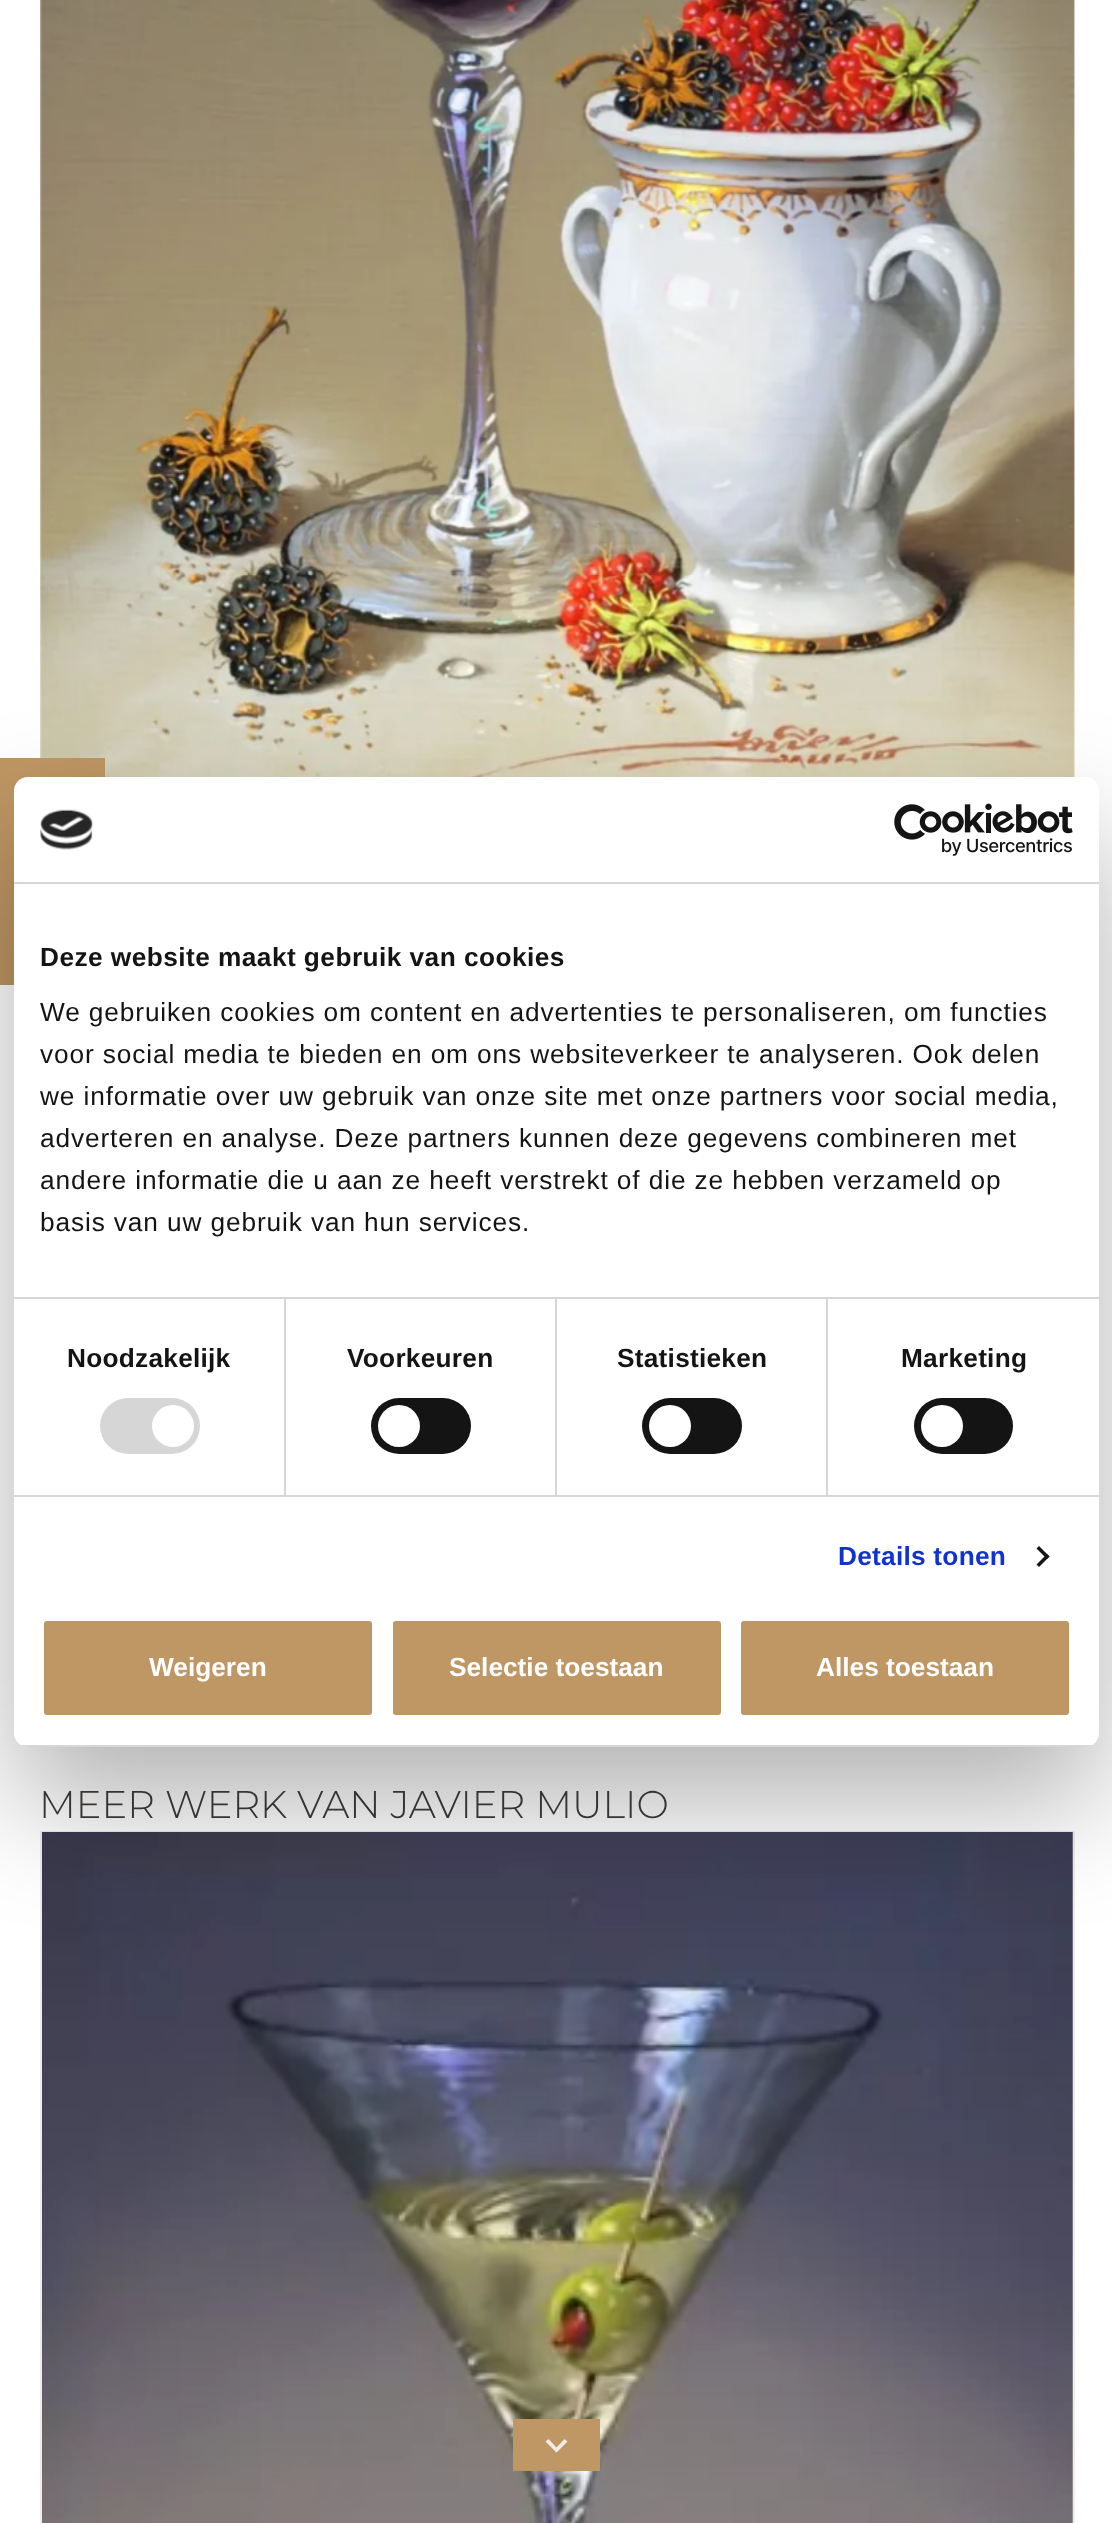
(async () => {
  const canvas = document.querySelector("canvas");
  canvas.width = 1112;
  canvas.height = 2523;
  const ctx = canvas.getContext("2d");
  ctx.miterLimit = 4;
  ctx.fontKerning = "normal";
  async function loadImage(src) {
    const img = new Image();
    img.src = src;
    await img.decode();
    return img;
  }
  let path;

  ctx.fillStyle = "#ffffff";
  ctx.fillRect(0, 0, 1112, 2523);
  ctx.drawImage(await loadImage("img/3.png"), 40, 0, 1035, 777);
  ctx.fillStyle = "#bf9764";
  ctx.fillRect(0, 758, 105, 227);
  ctx.strokeStyle = "#f0ece9";
  ctx.lineWidth = 2;
  ctx.strokeRect(41, 1832, 1033, 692);
  ctx.drawImage(await loadImage("img/4.png"), 42, 1832, 1031, 691);
  ctx.fillStyle = "rgba(0, 0, 0, 0.3)";
  ctx.filter = "blur(59.5px)";
  ctx.beginPath();
  ctx.roundRect(14, 833, 1085, 970, 14);
  ctx.fill();
  ctx.filter = "none";
  ctx.fillStyle = "#ffffff";
  ctx.beginPath();
  ctx.roundRect(14, 777, 1085, 970, 14);
  ctx.fill();
  ctx.fillStyle = "#d6d6d6";
  ctx.fillRect(14, 882, 1085, 2);
  ctx.drawImage(await loadImage("img/1.png"), 40, 809, 53, 41);
  ctx.drawImage(await loadImage("img/2.png"), 894, 803, 179, 53);
  for (const [x, y, w, h, color] of [
    [14, 1297, 1085, 2, "#d6d6d6"],
    [14, 1495, 1085, 2, "#d6d6d6"],
    [284, 1299, 2, 196, "#d6d6d6"],
  ]) {
    ctx.fillStyle = color;
    ctx.fillRect(x, y, w, h);
  }
  ctx.beginPath();
  ctx.roundRect(100, 1398, 100, 56, 28);
  ctx.fill();
  ctx.fillStyle = "#ffffff";
  ctx.beginPath();
  ctx.arc(173, 1426, 21, 0, Math.PI * 2);
  ctx.fill();
  ctx.fillStyle = "#d6d6d6";
  ctx.fillRect(555, 1299, 2, 196);
  ctx.fillStyle = "#141414";
  ctx.beginPath();
  ctx.roundRect(371, 1398, 100, 56, 28);
  ctx.fill();
  ctx.fillStyle = "#ffffff";
  ctx.beginPath();
  ctx.arc(399, 1426, 21, 0, Math.PI * 2);
  ctx.fill();
  ctx.fillStyle = "#d6d6d6";
  ctx.fillRect(826, 1299, 2, 196);
  ctx.fillStyle = "#141414";
  ctx.beginPath();
  ctx.roundRect(642, 1398, 100, 56, 28);
  ctx.fill();
  ctx.fillStyle = "#ffffff";
  ctx.beginPath();
  ctx.arc(670, 1426, 21, 0, Math.PI * 2);
  ctx.fill();
  ctx.fillStyle = "#141414";
  ctx.beginPath();
  ctx.roundRect(914, 1398, 99, 56, 28);
  ctx.fill();
  ctx.fillStyle = "#ffffff";
  ctx.beginPath();
  ctx.arc(942, 1426, 21, 0, Math.PI * 2);
  ctx.fill();
  ctx.fillStyle = "#141414";
  path = new Path2D("M1039 1546L1049.5 1556.5L1047 1559L1036.5 1548.5Z");
  ctx.fill(path);
  path = new Path2D("M1047 1554L1049.5 1556.5L1039 1567L1036.5 1564.5Z");
  ctx.fill(path);
  ctx.save();
  ctx.beginPath();
  ctx.roundRect(14, 777, 1085, 970, 14);
  ctx.clip();
  ctx.fillStyle = "#d6d6d6";
  ctx.fillRect(14, 1745, 1085, 2);
  ctx.restore();
  ctx.fillStyle = "#bf9764";
  ctx.beginPath();
  ctx.roundRect(42, 1619, 332, 98, 5);
  ctx.fill();
  ctx.strokeStyle = "#ffffff";
  ctx.lineWidth = 4;
  ctx.stroke();
  ctx.beginPath();
  ctx.roundRect(391, 1619, 332, 98, 5);
  ctx.fill();
  ctx.stroke();
  ctx.beginPath();
  ctx.roundRect(739, 1619, 332, 98, 5);
  ctx.fill();
  ctx.stroke();
  ctx.fillRect(513, 2419, 87, 52);
  ctx.fillStyle = "#f0ece9";
  path = new Path2D("M556.5 2447.5L548.5 2439L545.5 2441.5L556.5 2452.5L567.5 2441.5L564.5 2439Z");
  ctx.fill(path);
  ctx.letterSpacing = "0.45px";
  ctx.font = "bold 26.25px Liberation Sans";
  ctx.fillStyle = "#141414";
  ctx.fillText("Deze website maakt gebruik van cookies", 40, 966);
  ctx.letterSpacing = "0.88px";
  ctx.font = "26.25px Liberation Sans";
  for (const [text, x, y] of [
    ["We gebruiken cookies om content en advertenties te personaliseren, om functies", 40, 1021],
    ["voor social media te bieden en om ons websiteverkeer te analyseren. Ook delen", 40, 1063],
    ["we informatie over uw gebruik van onze site met onze partners voor social media,", 40, 1105],
    ["adverteren en analyse. Deze partners kunnen deze gegevens combineren met", 40, 1147],
    ["andere informatie die u aan ze heeft verstrekt of die ze hebben verzameld op", 40, 1189],
    ["basis van uw gebruik van hun services.", 40, 1231],
  ]) {
    ctx.fillText(text, x, y);
  }
  ctx.letterSpacing = "0.25px";
  ctx.font = "bold 26.25px Liberation Sans";
  for (const [text, x, y] of [
    ["Noodzakelijk", 67, 1367],
    ["Voorkeuren", 347, 1367],
    ["Statistieken", 617, 1367],
    ["Marketing", 901, 1367],
  ]) {
    ctx.fillText(text, x, y);
  }
  ctx.fillStyle = "#1032cf";
  ctx.fillText("Details tonen", 838, 1565);
  ctx.letterSpacing = "0px";
  ctx.fillStyle = "#ffffff";
  for (const [text, x, y] of [
    ["Weigeren", 149, 1676],
    ["Selectie toestaan", 449, 1676],
    ["Alles toestaan", 816, 1676],
  ]) {
    ctx.fillText(text, x, y);
  }
  ctx.font = "300 38.5px Montserrat";
  ctx.fillStyle = "#363432";
  ctx.fillText("MEER WERK VAN JAVIER MULIO", 39, 1818);
})();
